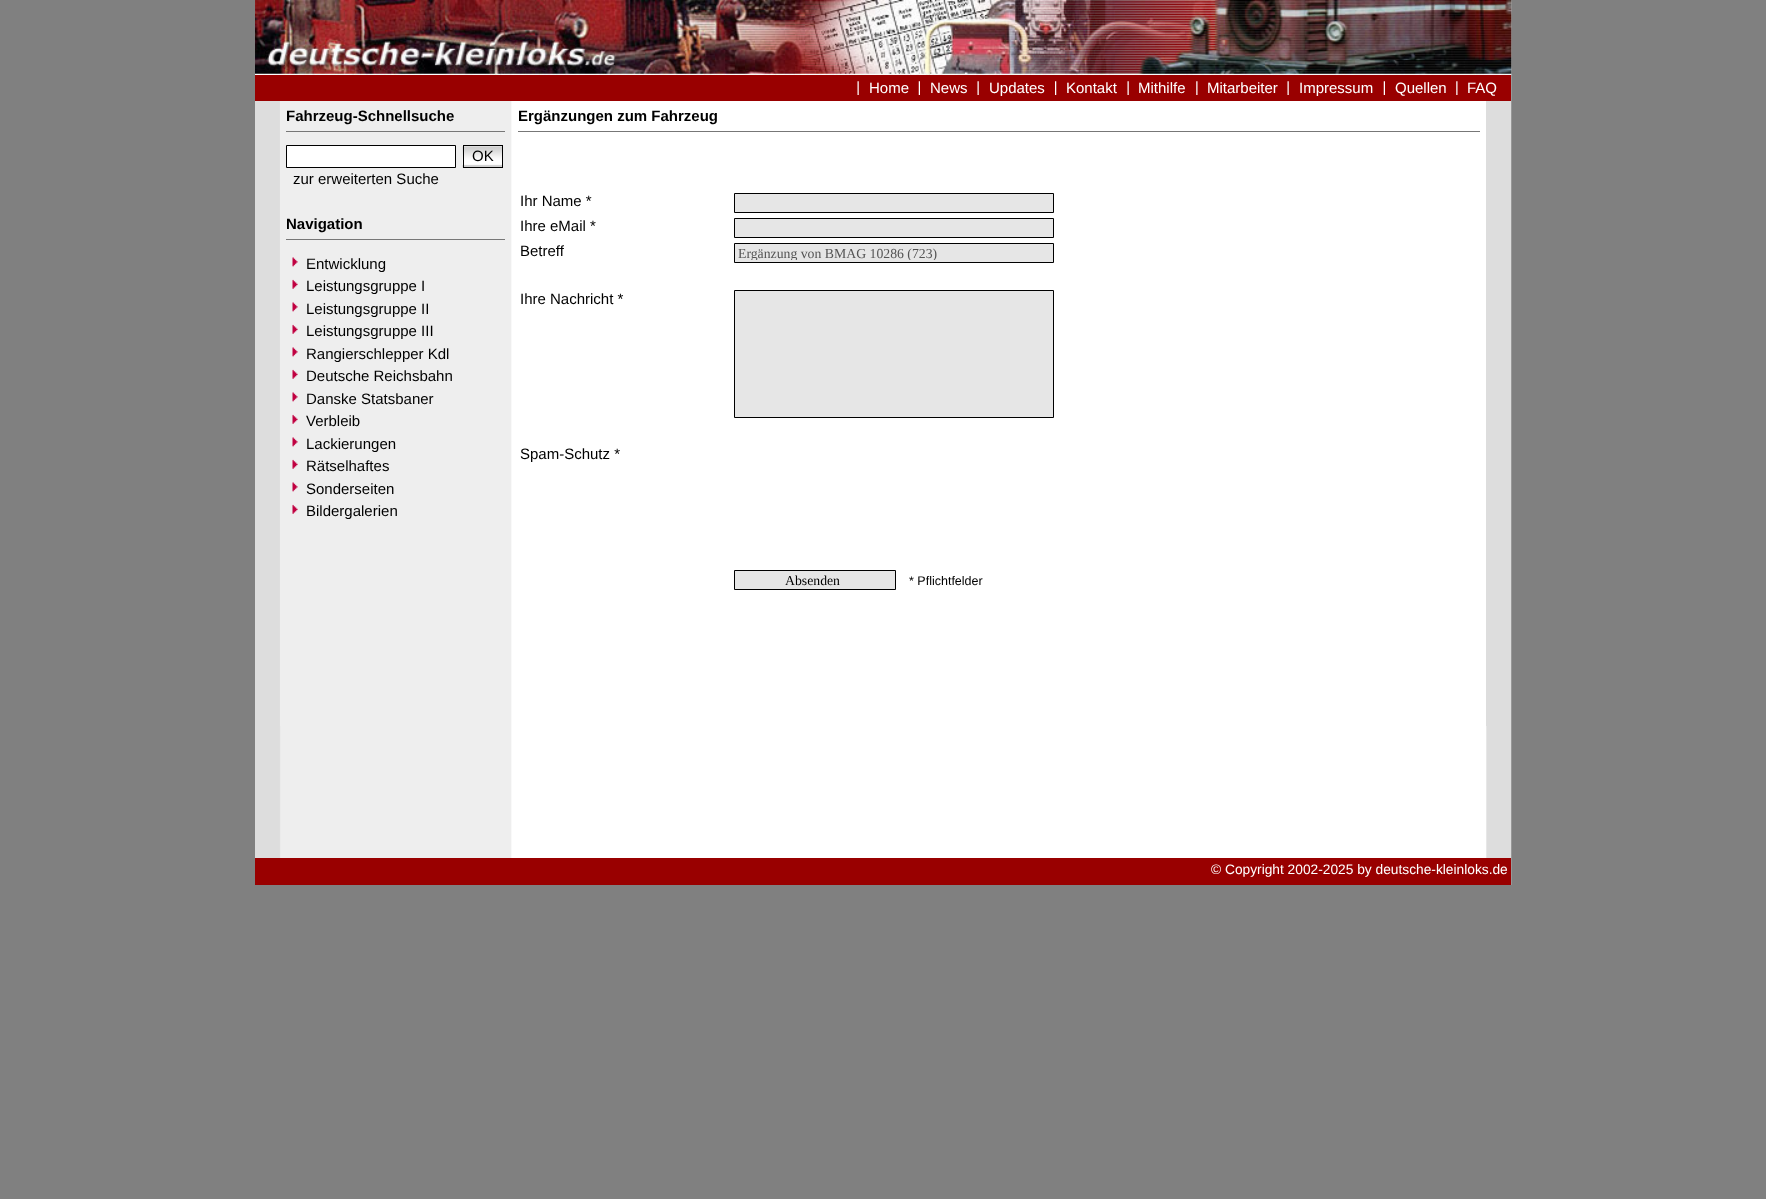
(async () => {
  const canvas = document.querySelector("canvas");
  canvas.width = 1766;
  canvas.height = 1199;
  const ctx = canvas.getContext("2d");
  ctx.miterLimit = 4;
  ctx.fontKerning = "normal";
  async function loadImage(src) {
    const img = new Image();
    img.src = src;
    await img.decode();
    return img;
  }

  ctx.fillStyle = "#808080";
  ctx.fillRect(0, 0, 1766, 1199);
  ctx.drawImage(await loadImage("img/1.png"), 255, 0, 1257, 885);
  ctx.drawImage(await loadImage("img/2.png"), 255, 0, 1257, 75);
  ctx.fillStyle = "#990000";
  ctx.fillRect(255, 75, 1256, 26);
  ctx.drawImage(await loadImage("img/3.png"), 857, 81, 2, 14);
  ctx.drawImage(await loadImage("img/4.png"), 918, 81, 2, 14);
  ctx.drawImage(await loadImage("img/3.png"), 977, 81, 2, 14);
  ctx.drawImage(await loadImage("img/5.png"), 1055, 81, 2, 14);
  ctx.drawImage(await loadImage("img/3.png"), 1127, 81, 2, 14);
  ctx.drawImage(await loadImage("img/6.png"), 1196, 81, 2, 14);
  ctx.drawImage(await loadImage("img/3.png"), 1287, 81, 2, 14);
  ctx.drawImage(await loadImage("img/4.png"), 1383, 81, 2, 14);
  ctx.drawImage(await loadImage("img/6.png"), 1456, 81, 2, 14);
  ctx.fillStyle = "#eeeeee";
  ctx.fillRect(280, 101, 1, 625);
  ctx.fillStyle = "#777777";
  ctx.fillRect(286, 131, 219, 1);
  ctx.fillStyle = "#ffffff";
  ctx.beginPath();
  ctx.rect(286.5, 145.5, 169, 22);
  ctx.fill();
  ctx.strokeStyle = "#000000";
  ctx.stroke();
  ctx.drawImage(await loadImage("img/7.png"), 462, 145, 40, 23);
  ctx.strokeRect(463.5, 145.5, 39, 22);
  ctx.fillStyle = "#777777";
  ctx.fillRect(286, 239, 219, 1);
  ctx.drawImage(await loadImage("img/8.png"), 292, 257, 6, 10);
  ctx.drawImage(await loadImage("img/9.png"), 292, 279, 6, 10);
  ctx.drawImage(await loadImage("img/8.png"), 292, 302, 6, 10);
  ctx.drawImage(await loadImage("img/9.png"), 292, 324, 6, 10);
  ctx.drawImage(await loadImage("img/8.png"), 292, 347, 6, 10);
  ctx.drawImage(await loadImage("img/9.png"), 292, 369, 6, 10);
  ctx.drawImage(await loadImage("img/8.png"), 292, 392, 6, 10);
  ctx.drawImage(await loadImage("img/9.png"), 292, 414, 6, 10);
  ctx.drawImage(await loadImage("img/8.png"), 292, 437, 6, 10);
  ctx.drawImage(await loadImage("img/9.png"), 292, 459, 6, 10);
  ctx.drawImage(await loadImage("img/8.png"), 292, 482, 6, 10);
  ctx.drawImage(await loadImage("img/9.png"), 292, 504, 6, 10);
  ctx.fillRect(518, 131, 962, 1);
  ctx.fillStyle = "#e6e6e6";
  ctx.beginPath();
  ctx.rect(734.5, 193.5, 319, 19);
  ctx.fill();
  ctx.stroke();
  ctx.beginPath();
  ctx.rect(734.5, 218.5, 319, 19);
  ctx.fill();
  ctx.stroke();
  ctx.beginPath();
  ctx.rect(734.5, 243.5, 319, 19);
  ctx.fill();
  ctx.stroke();
  ctx.beginPath();
  ctx.rect(734.5, 290.5, 319, 127);
  ctx.fill();
  ctx.stroke();
  ctx.beginPath();
  ctx.rect(734.5, 570.5, 161, 19);
  ctx.fill();
  ctx.stroke();
  ctx.fillStyle = "#dddddd";
  ctx.fillRect(1486, 101, 1, 625);
  ctx.fillStyle = "#990000";
  ctx.fillRect(255, 858, 1256, 27);
  ctx.font = "15px Liberation Sans";
  ctx.fillStyle = "#ffffff";
  for (const [text, x, y] of [
    ["Home", 869, 93],
    ["News", 930, 93],
    ["Updates", 989, 93],
    ["Kontakt", 1066, 93],
    ["Mithilfe", 1138, 93],
    ["Mitarbeiter", 1207, 93],
    ["Impressum", 1299, 93],
    ["Quellen", 1395, 93],
    ["FAQ", 1467, 93],
  ]) {
    ctx.fillText(text, x, y);
  }
  ctx.font = "bold 15px Liberation Sans";
  ctx.fillStyle = "#000000";
  ctx.fillText("Fahrzeug-Schnellsuche", 286, 121);
  ctx.font = "15px Liberation Sans";
  ctx.fillText("OK", 472, 161);
  ctx.fillText("zur erweiterten Suche", 293, 184);
  ctx.font = "bold 15px Liberation Sans";
  ctx.fillText("Navigation", 286, 229);
  ctx.font = "15px Liberation Sans";
  for (const [text, x, y] of [
    ["Entwicklung", 306, 269],
    ["Leistungsgruppe I", 306, 291],
    ["Leistungsgruppe II", 306, 314],
    ["Leistungsgruppe III", 306, 336],
    ["Rangierschlepper Kdl", 306, 359],
    ["Deutsche Reichsbahn", 306, 381],
    ["Danske Statsbaner", 306, 404],
    ["Verbleib", 306, 426],
    ["Lackierungen", 306, 449],
    ["Rätselhaftes", 306, 471],
    ["Sonderseiten", 306, 494],
    ["Bildergalerien", 306, 516],
  ]) {
    ctx.fillText(text, x, y);
  }
  ctx.font = "bold 15px Liberation Sans";
  ctx.fillText("Ergänzungen zum Fahrzeug", 518, 121);
  ctx.font = "15px Liberation Sans";
  for (const [text, x, y] of [
    ["Ihr Name *", 520, 206],
    ["Ihre eMail *", 520, 231],
    ["Betreff", 520, 256],
  ]) {
    ctx.fillText(text, x, y);
  }
  ctx.save();
  ctx.beginPath();
  ctx.rect(738, 245, 312, 15);
  ctx.clip();
  ctx.font = "13.75px Liberation Serif";
  ctx.fillStyle = "#545454";
  ctx.fillText("Ergänzung von BMAG 10286 (723)", 738, 258);
  ctx.restore();
  ctx.fillText("Ihre Nachricht *", 520, 304);
  ctx.fillText("Spam-Schutz *", 520, 459);
  ctx.font = "13.75px Liberation Serif";
  ctx.fillText("Absenden", 785, 585);
  ctx.font = "12.5px Liberation Sans";
  ctx.fillText("* Pflichtfelder", 909, 585);
  ctx.font = "13.75px Liberation Sans";
  ctx.fillStyle = "#ffffff";
  ctx.fillText("© Copyright 2002-2025 by deutsche-kleinloks.de", 1211, 874);
})();
